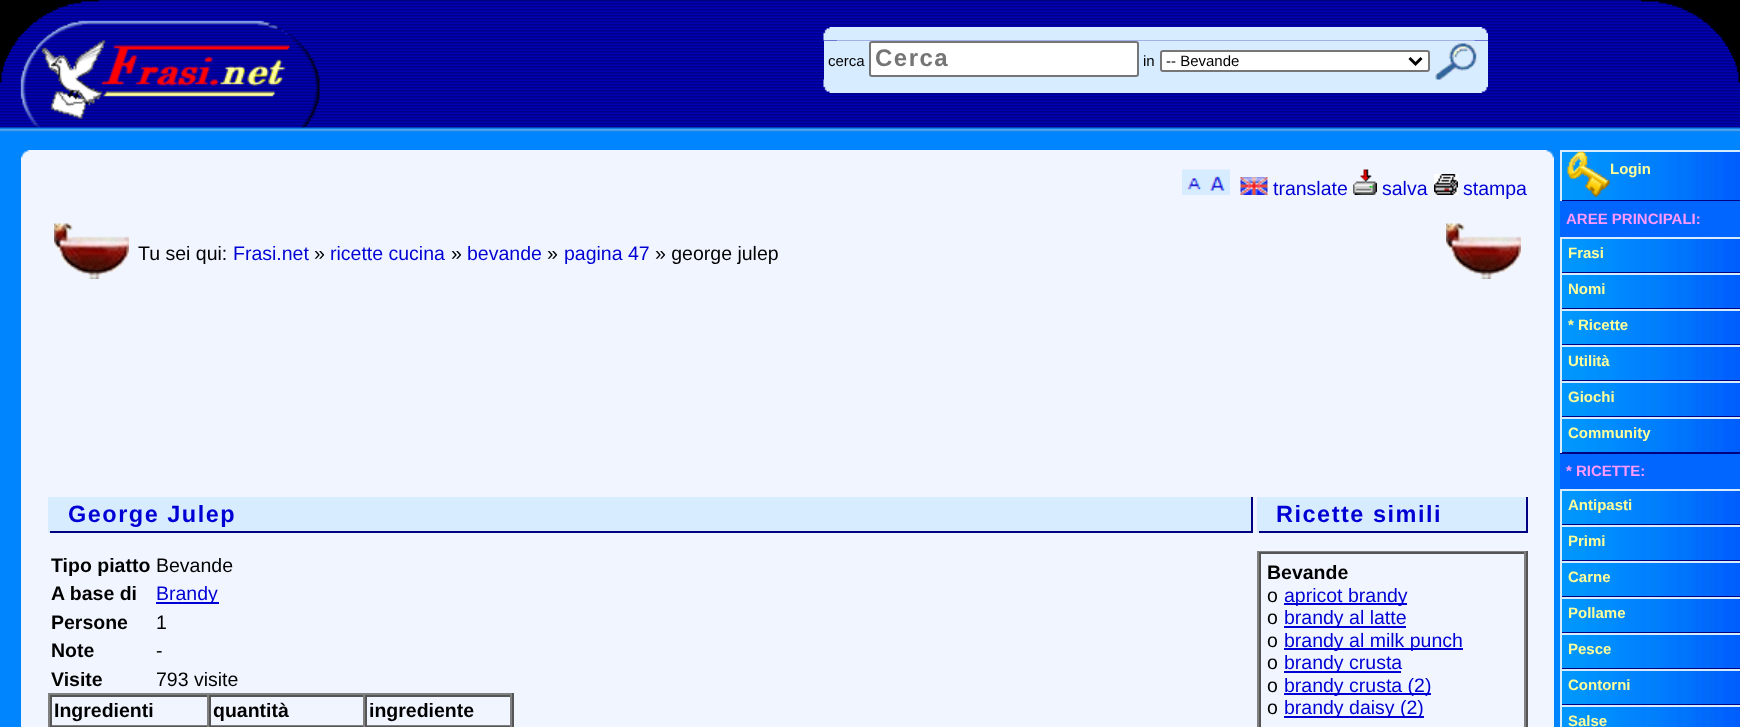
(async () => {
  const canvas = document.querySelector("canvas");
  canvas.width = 1740;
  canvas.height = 727;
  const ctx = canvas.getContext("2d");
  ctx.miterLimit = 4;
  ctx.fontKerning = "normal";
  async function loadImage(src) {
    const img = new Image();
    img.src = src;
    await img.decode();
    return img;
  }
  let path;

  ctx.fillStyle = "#0085ff";
  ctx.fillRect(0, 0, 1740, 727);
  ctx.drawImage(await loadImage("img/1.png"), 0, 0, 1740, 128);
  ctx.drawImage(await loadImage("img/2.png"), 41, 40, 249, 79);
  ctx.drawImage(await loadImage("img/3.png"), 823, 27, 652, 14);
  ctx.drawImage(await loadImage("img/4.png"), 837, 27, 651, 14);
  ctx.fillStyle = "#d8ecff";
  ctx.fillRect(824, 41, 664, 39);
  ctx.fillStyle = "#ffffff";
  ctx.beginPath();
  ctx.roundRect(870, 42, 268, 34, 2);
  ctx.fill();
  ctx.strokeStyle = "#767676";
  ctx.lineWidth = 2;
  ctx.stroke();
  ctx.beginPath();
  ctx.roundRect(1161, 51, 268, 20, 2);
  ctx.fill();
  ctx.stroke();
  path = new Path2D("M1409.5 58L1415.5 64L1421.5 58");
  ctx.strokeStyle = "#000000";
  ctx.lineWidth = 3;
  ctx.stroke(path);
  ctx.drawImage(await loadImage("img/6.png"), 823, 79, 652, 14);
  ctx.drawImage(await loadImage("img/5.png"), 1435, 43, 42, 37);
  ctx.drawImage(await loadImage("img/7.png"), 1474, 80, 14, 13);
  ctx.drawImage(await loadImage("img/8.png"), 1641, 0, 99, 83);
  ctx.drawImage(await loadImage("img/9.png"), 0, 127, 1740, 5);
  ctx.fillStyle = "#f0f5ff";
  ctx.fillRect(21, 150, 1533, 577);
  ctx.drawImage(await loadImage("img/10.png"), 21, 150, 8, 8);
  ctx.drawImage(await loadImage("img/11.png"), 1546, 150, 8, 8);
  ctx.drawImage(await loadImage("img/12.png"), 1182, 169, 48, 26);
  ctx.drawImage(await loadImage("img/13.png"), 1240, 177, 28, 18);
  ctx.drawImage(await loadImage("img/14.png"), 1353, 169, 24, 26);
  ctx.drawImage(await loadImage("img/15.png"), 1434, 174, 24, 21);
  ctx.drawImage(await loadImage("img/16.png"), 54, 223, 75, 56);
  ctx.drawImage(await loadImage("img/16.png"), 1446, 223, 75, 56);
  for (const [x, y, w, h, color] of [
    [50, 497, 1201, 34, "#d8ecff"],
    [1251, 497, 2, 36, "#000080"],
    [48, 531, 1205, 2, "#000080"],
    [48, 497, 2, 36, "#d8ecff"],
    [156, 602, 63, 2, "#0000d4"],
    [48, 693, 465, 2, "#808080"],
    [512, 693, 2, 34, "#555555"],
    [48, 693, 2, 34, "#808080"],
    [50, 695, 462, 2, "#555555"],
    [207, 695, 2, 31, "#808080"],
    [50, 725, 159, 1, "#808080"],
    [50, 695, 2, 31, "#555555"],
    [363, 695, 2, 31, "#808080"],
    [209, 725, 156, 1, "#808080"],
    [209, 695, 2, 31, "#555555"],
    [510, 695, 2, 31, "#808080"],
    [365, 725, 147, 1, "#808080"],
    [365, 695, 2, 31, "#555555"],
    [50, 726, 462, 1, "#555555"],
    [207, 726, 2, 1, "#808080"],
    [363, 726, 2, 1, "#808080"],
    [510, 726, 2, 1, "#808080"],
    [1259, 497, 267, 34, "#d8ecff"],
    [1526, 497, 2, 36, "#000080"],
    [1257, 531, 270, 2, "#000080"],
    [1257, 497, 2, 36, "#d8ecff"],
    [1257, 551, 270, 1, "#808080"],
    [1526, 551, 2, 176, "#555555"],
    [1257, 551, 2, 176, "#808080"],
    [1259, 552, 267, 2, "#555555"],
    [1524, 552, 2, 175, "#808080"],
    [1259, 552, 2, 175, "#555555"],
    [1284, 603, 123, 2, "#0000d4"],
    [1284, 626, 122, 2, "#0000d4"],
    [1284, 648, 179, 2, "#0000d4"],
    [1284, 671, 117, 2, "#0000d4"],
    [1284, 693, 147, 2, "#0000d4"],
    [1284, 716, 140, 2, "#0000d4"],
  ]) {
    ctx.fillStyle = color;
    ctx.fillRect(x, y, w, h);
  }
  ctx.drawImage(await loadImage("img/17.png"), 1562, 152, 178, 48);
  for (const [x, y, w, h, color] of [
    [1560, 150, 180, 2, "#d8ecff"],
    [1560, 200, 180, 1, "#000080"],
    [1560, 150, 2, 51, "#d8ecff"],
  ]) {
    ctx.fillStyle = color;
    ctx.fillRect(x, y, w, h);
  }
  ctx.drawImage(await loadImage("img/18.png"), 1567, 151, 43, 46);
  ctx.fillStyle = "#0066ff";
  ctx.fillRect(1560, 201, 180, 36);
  ctx.drawImage(await loadImage("img/19.png"), 1562, 239, 178, 33);
  for (const [x, y, w, h, color] of [
    [1560, 237, 180, 2, "#d8ecff"],
    [1560, 272, 180, 1, "#000080"],
    [1560, 237, 2, 36, "#d8ecff"],
  ]) {
    ctx.fillStyle = color;
    ctx.fillRect(x, y, w, h);
  }
  ctx.drawImage(await loadImage("img/19.png"), 1562, 275, 178, 33);
  for (const [x, y, w, h, color] of [
    [1560, 273, 180, 2, "#d8ecff"],
    [1560, 308, 180, 1, "#000080"],
    [1560, 273, 2, 36, "#d8ecff"],
  ]) {
    ctx.fillStyle = color;
    ctx.fillRect(x, y, w, h);
  }
  ctx.drawImage(await loadImage("img/19.png"), 1562, 311, 178, 33);
  for (const [x, y, w, h, color] of [
    [1560, 309, 180, 2, "#d8ecff"],
    [1560, 344, 180, 1, "#000080"],
    [1560, 309, 2, 36, "#d8ecff"],
  ]) {
    ctx.fillStyle = color;
    ctx.fillRect(x, y, w, h);
  }
  ctx.drawImage(await loadImage("img/19.png"), 1562, 347, 178, 33);
  for (const [x, y, w, h, color] of [
    [1560, 345, 180, 2, "#d8ecff"],
    [1560, 380, 180, 1, "#000080"],
    [1560, 345, 2, 36, "#d8ecff"],
  ]) {
    ctx.fillStyle = color;
    ctx.fillRect(x, y, w, h);
  }
  ctx.drawImage(await loadImage("img/19.png"), 1562, 383, 178, 33);
  for (const [x, y, w, h, color] of [
    [1560, 381, 180, 2, "#d8ecff"],
    [1560, 416, 180, 1, "#000080"],
    [1560, 381, 2, 36, "#d8ecff"],
  ]) {
    ctx.fillStyle = color;
    ctx.fillRect(x, y, w, h);
  }
  ctx.drawImage(await loadImage("img/19.png"), 1562, 419, 178, 33);
  for (const [x, y, w, h, color] of [
    [1560, 417, 180, 2, "#d8ecff"],
    [1560, 452, 180, 2, "#000080"],
    [1560, 417, 2, 36, "#d8ecff"],
    [1560, 454, 180, 35, "#0066ff"],
  ]) {
    ctx.fillStyle = color;
    ctx.fillRect(x, y, w, h);
  }
  ctx.drawImage(await loadImage("img/19.png"), 1562, 491, 178, 33);
  for (const [x, y, w, h, color] of [
    [1560, 489, 180, 2, "#d8ecff"],
    [1560, 524, 180, 1, "#000080"],
    [1560, 489, 2, 36, "#d8ecff"],
  ]) {
    ctx.fillStyle = color;
    ctx.fillRect(x, y, w, h);
  }
  ctx.drawImage(await loadImage("img/19.png"), 1562, 527, 178, 33);
  for (const [x, y, w, h, color] of [
    [1560, 525, 180, 2, "#d8ecff"],
    [1560, 560, 180, 1, "#000080"],
    [1560, 525, 2, 36, "#d8ecff"],
  ]) {
    ctx.fillStyle = color;
    ctx.fillRect(x, y, w, h);
  }
  ctx.drawImage(await loadImage("img/19.png"), 1562, 563, 178, 33);
  for (const [x, y, w, h, color] of [
    [1560, 561, 180, 2, "#d8ecff"],
    [1560, 596, 180, 1, "#000080"],
    [1560, 561, 2, 36, "#d8ecff"],
  ]) {
    ctx.fillStyle = color;
    ctx.fillRect(x, y, w, h);
  }
  ctx.drawImage(await loadImage("img/19.png"), 1562, 599, 178, 33);
  for (const [x, y, w, h, color] of [
    [1560, 597, 180, 2, "#d8ecff"],
    [1560, 632, 180, 1, "#000080"],
    [1560, 597, 2, 36, "#d8ecff"],
  ]) {
    ctx.fillStyle = color;
    ctx.fillRect(x, y, w, h);
  }
  ctx.drawImage(await loadImage("img/19.png"), 1562, 635, 178, 33);
  for (const [x, y, w, h, color] of [
    [1560, 633, 180, 2, "#d8ecff"],
    [1560, 668, 180, 1, "#000080"],
    [1560, 633, 2, 36, "#d8ecff"],
  ]) {
    ctx.fillStyle = color;
    ctx.fillRect(x, y, w, h);
  }
  ctx.drawImage(await loadImage("img/19.png"), 1562, 671, 178, 33);
  for (const [x, y, w, h, color] of [
    [1560, 669, 180, 2, "#d8ecff"],
    [1560, 704, 180, 1, "#000080"],
    [1560, 669, 2, 36, "#d8ecff"],
  ]) {
    ctx.fillStyle = color;
    ctx.fillRect(x, y, w, h);
  }
  ctx.drawImage(await loadImage("img/20.png"), 1562, 707, 178, 20);
  ctx.fillRect(1560, 705, 180, 2);
  ctx.fillRect(1560, 705, 2, 22);
  ctx.font = "15px Liberation Sans";
  ctx.fillStyle = "#000000";
  ctx.fillText("cerca", 828, 66);
  ctx.letterSpacing = "1.5px";
  ctx.font = "bold 24px Liberation Sans";
  ctx.fillStyle = "#757575";
  ctx.fillText("Cerca", 875, 66);
  ctx.letterSpacing = "0px";
  ctx.font = "15px Liberation Sans";
  ctx.fillStyle = "#000000";
  ctx.fillText("in", 1143, 66);
  ctx.fillText("-- Bevande", 1166, 66);
  ctx.font = "19.5px Liberation Sans";
  ctx.fillStyle = "#0000d4";
  for (const [text, x, y] of [
    ["translate", 1273, 195],
    ["salva", 1382, 195],
    ["stampa", 1463, 195],
  ]) {
    ctx.fillText(text, x, y);
  }
  ctx.fillStyle = "#000000";
  ctx.fillText("Tu sei qui:", 138, 260);
  ctx.fillStyle = "#0000d4";
  ctx.fillText("Frasi.net", 233, 260);
  ctx.fillStyle = "#000000";
  ctx.fillText("»", 314, 260);
  ctx.fillStyle = "#0000d4";
  ctx.fillText("ricette cucina", 330, 260);
  ctx.fillStyle = "#000000";
  ctx.fillText("»", 451, 260);
  ctx.fillStyle = "#0000d4";
  ctx.fillText("bevande", 467, 260);
  ctx.fillStyle = "#000000";
  ctx.fillText("»", 547, 260);
  ctx.fillStyle = "#0000d4";
  ctx.fillText("pagina 47", 564, 260);
  ctx.fillStyle = "#000000";
  ctx.fillText("» george julep", 655, 260);
  ctx.letterSpacing = "1.5px";
  ctx.font = "bold 23.5px Liberation Sans";
  ctx.fillStyle = "#0000d4";
  ctx.fillText("George Julep", 68, 522);
  ctx.letterSpacing = "0px";
  ctx.font = "bold 19.5px Liberation Sans";
  ctx.fillStyle = "#000000";
  ctx.fillText("Tipo piatto", 51, 572);
  ctx.font = "19.5px Liberation Sans";
  ctx.fillText("Bevande", 156, 572);
  ctx.font = "bold 19.5px Liberation Sans";
  ctx.fillText("A base di", 51, 600);
  ctx.font = "19.5px Liberation Sans";
  ctx.fillStyle = "#0000d4";
  ctx.fillText("Brandy", 156, 600);
  ctx.font = "bold 19.5px Liberation Sans";
  ctx.fillStyle = "#000000";
  ctx.fillText("Persone", 51, 629);
  ctx.font = "19.5px Liberation Sans";
  ctx.fillText("1", 156, 629);
  ctx.font = "bold 19.5px Liberation Sans";
  ctx.fillText("Note", 51, 657);
  ctx.font = "19.5px Liberation Sans";
  ctx.fillText("-", 156, 657);
  ctx.font = "bold 19.5px Liberation Sans";
  ctx.fillText("Visite", 51, 686);
  ctx.font = "19.5px Liberation Sans";
  ctx.fillText("793 visite", 156, 686);
  ctx.font = "bold 19.5px Liberation Sans";
  for (const [text, x, y] of [
    ["Ingredienti", 54, 717],
    ["quantità", 213, 717],
    ["ingrediente", 369, 717],
  ]) {
    ctx.fillText(text, x, y);
  }
  ctx.letterSpacing = "1.5px";
  ctx.font = "bold 23.5px Liberation Sans";
  ctx.fillStyle = "#0000d4";
  ctx.fillText("Ricette simili", 1276, 522);
  ctx.letterSpacing = "0px";
  ctx.font = "bold 19.5px Liberation Sans";
  ctx.fillStyle = "#000000";
  ctx.fillText("Bevande", 1267, 579);
  ctx.font = "19.5px Liberation Sans";
  ctx.fillText("ο", 1267, 602);
  ctx.fillStyle = "#0000d4";
  ctx.fillText("apricot brandy", 1284, 602);
  ctx.fillStyle = "#000000";
  ctx.fillText("ο", 1267, 624);
  ctx.fillStyle = "#0000d4";
  ctx.fillText("brandy al latte", 1284, 624);
  ctx.fillStyle = "#000000";
  ctx.fillText("ο", 1267, 647);
  ctx.fillStyle = "#0000d4";
  ctx.fillText("brandy al milk punch", 1284, 647);
  ctx.fillStyle = "#000000";
  ctx.fillText("ο", 1267, 669);
  ctx.fillStyle = "#0000d4";
  ctx.fillText("brandy crusta", 1284, 669);
  ctx.fillStyle = "#000000";
  ctx.fillText("ο", 1267, 692);
  ctx.fillStyle = "#0000d4";
  ctx.fillText("brandy crusta (2)", 1284, 692);
  ctx.fillStyle = "#000000";
  ctx.fillText("ο", 1267, 714);
  ctx.fillStyle = "#0000d4";
  ctx.fillText("brandy daisy (2)", 1284, 714);
  ctx.font = "bold 15px Liberation Sans";
  ctx.fillStyle = "#ffff99";
  ctx.fillText("Login", 1610, 174);
  ctx.fillStyle = "#ff99ff";
  ctx.fillText("AREE PRINCIPALI:", 1566, 224);
  ctx.fillStyle = "#ffff99";
  for (const [text, x, y] of [
    ["Frasi", 1568, 258],
    ["Nomi", 1568, 294],
    ["* Ricette", 1568, 330],
    ["Utilità", 1568, 366],
    ["Giochi", 1568, 402],
    ["Community", 1568, 438],
  ]) {
    ctx.fillText(text, x, y);
  }
  ctx.fillStyle = "#ff99ff";
  ctx.fillText("* RICETTE:", 1566, 476);
  ctx.fillStyle = "#ffff99";
  for (const [text, x, y] of [
    ["Antipasti", 1568, 510],
    ["Primi", 1568, 546],
    ["Carne", 1568, 582],
    ["Pollame", 1568, 618],
    ["Pesce", 1568, 654],
    ["Contorni", 1568, 690],
    ["Salse", 1568, 726],
  ]) {
    ctx.fillText(text, x, y);
  }
})();
